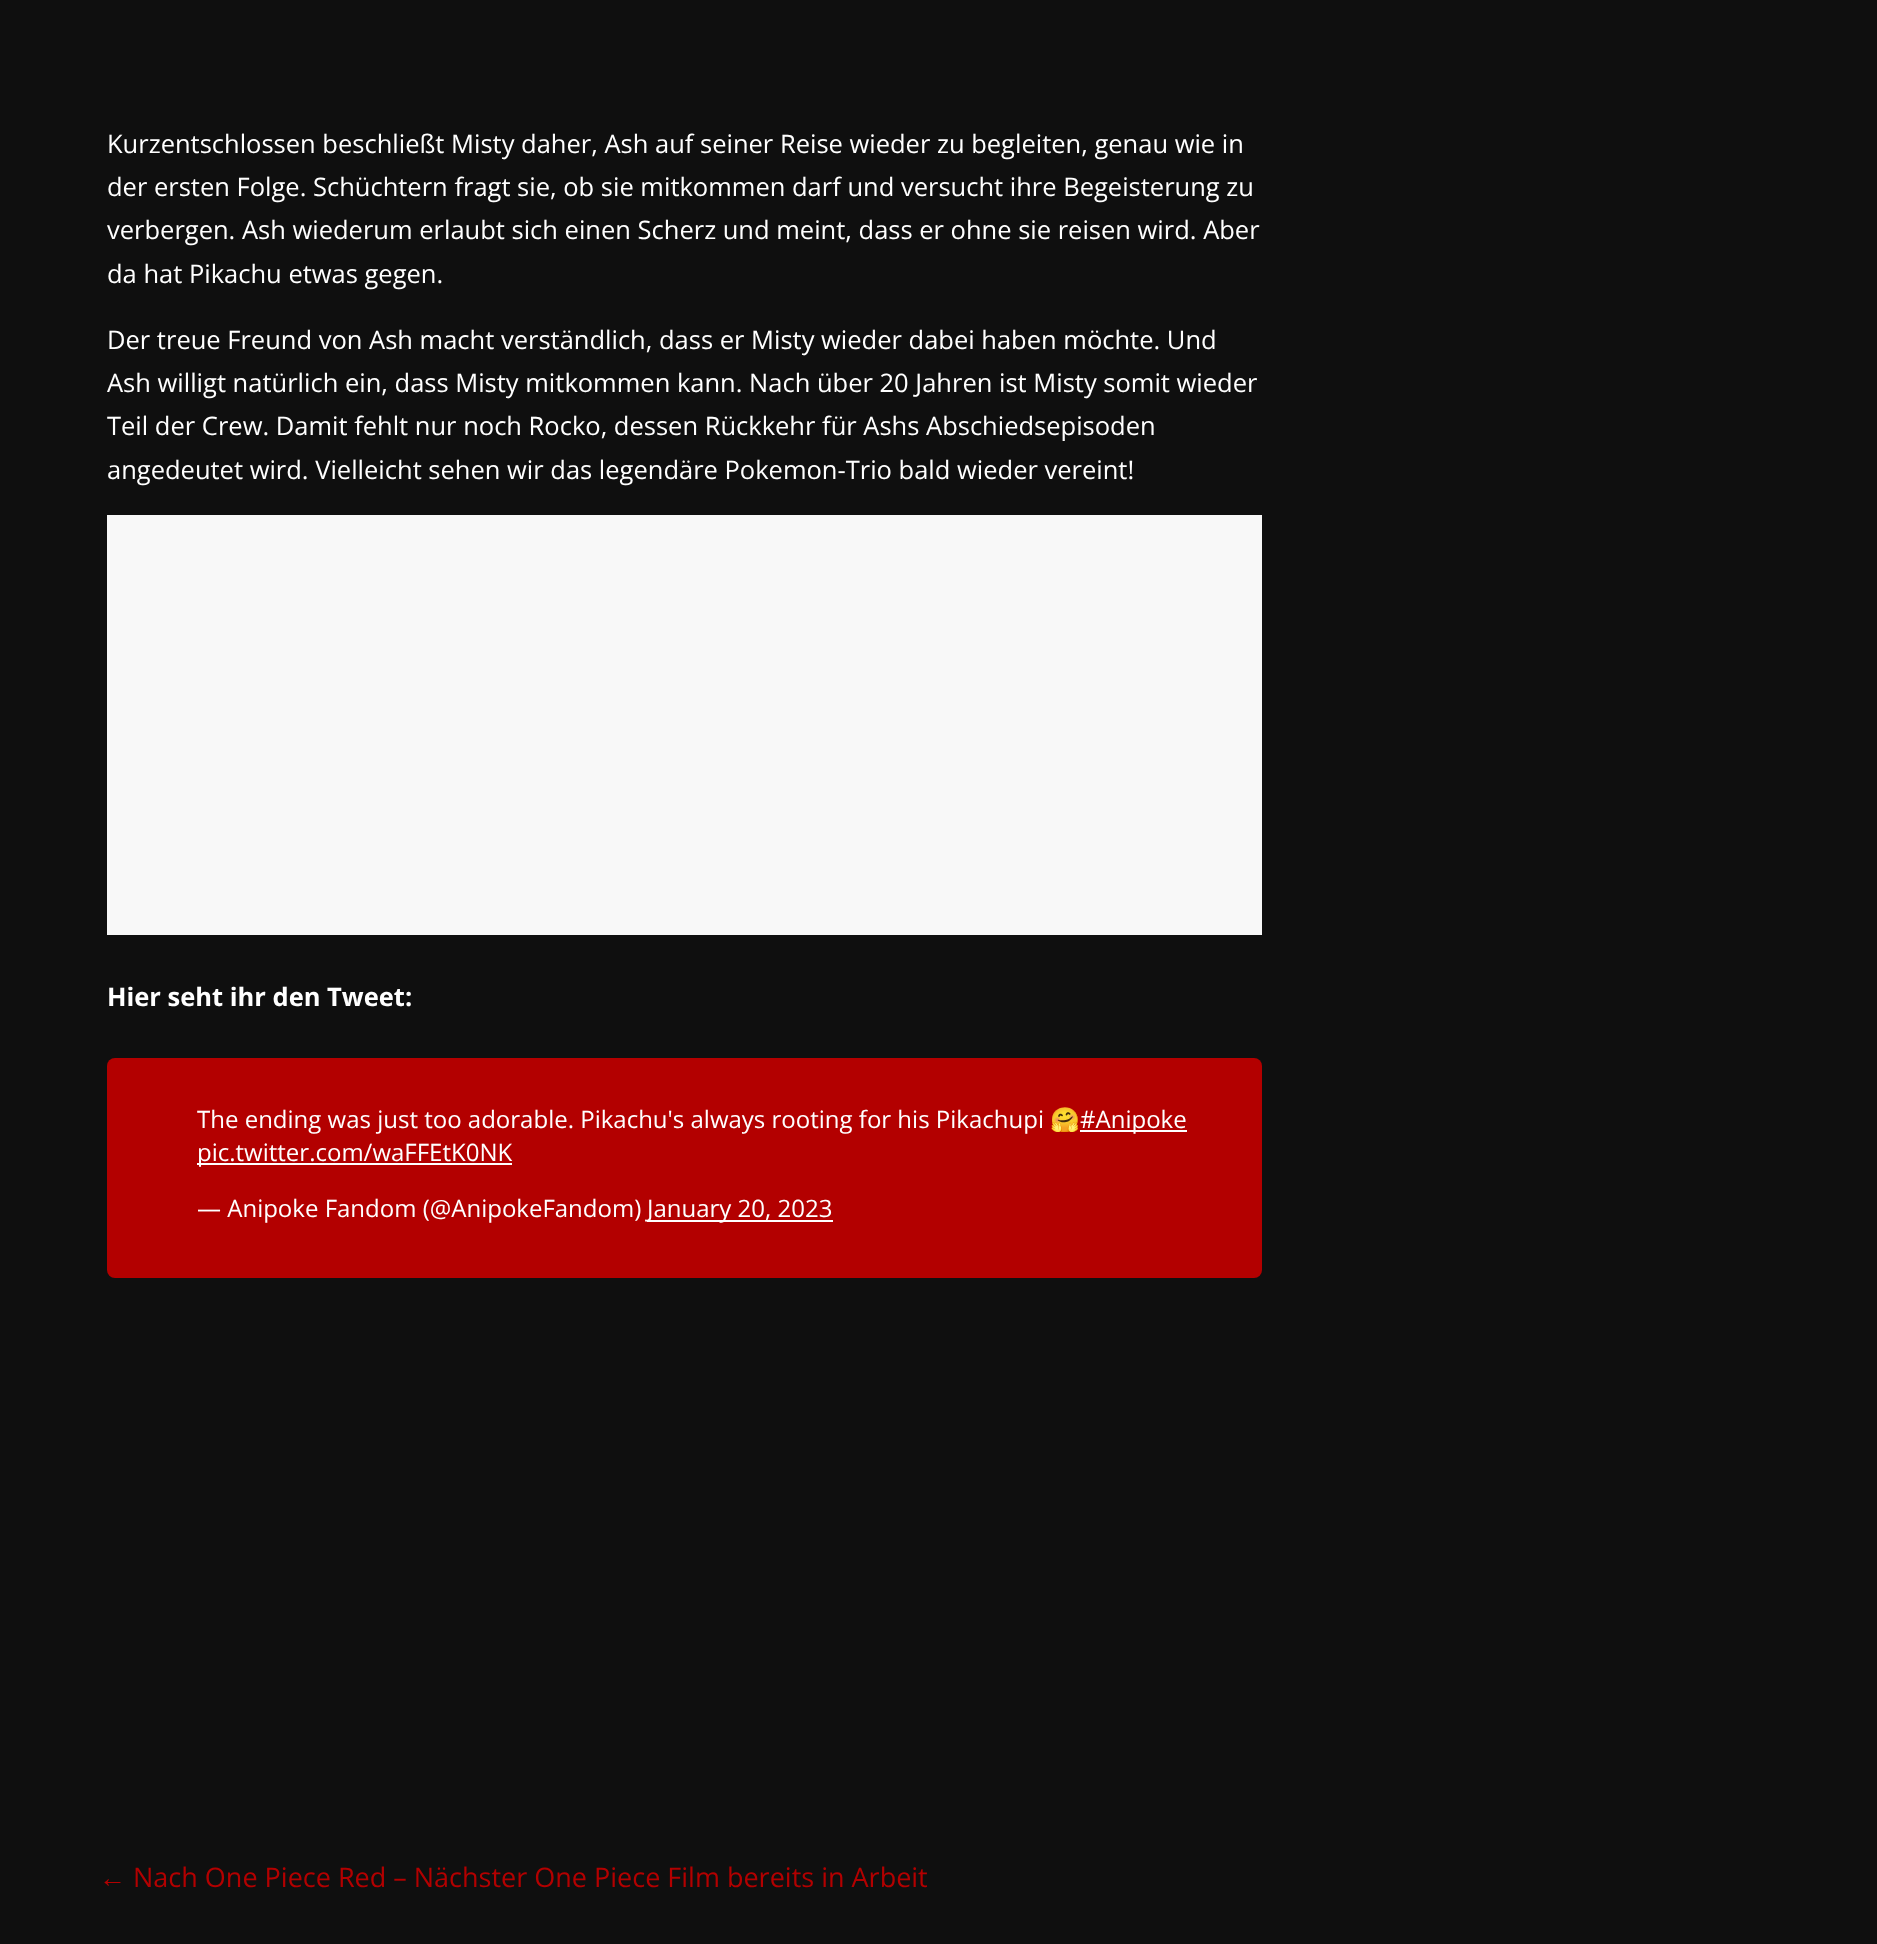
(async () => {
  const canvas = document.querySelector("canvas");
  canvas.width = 1877;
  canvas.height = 1944;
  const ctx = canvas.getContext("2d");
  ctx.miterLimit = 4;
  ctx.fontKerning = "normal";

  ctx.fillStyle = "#0f0f0f";
  ctx.fillRect(0, 0, 1877, 1944);
  ctx.fillStyle = "#f8f8f8";
  ctx.fillRect(107, 515, 1155, 420);
  ctx.fillStyle = "#b30000";
  ctx.beginPath();
  ctx.roundRect(107, 1058, 1155, 220, 8);
  ctx.fill();
  for (const [x, y, w, h, color] of [
    [1080, 1130, 107, 2, "#ffffff"],
    [197, 1163, 315, 2, "#ffffff"],
    [647, 1220, 186, 2, "#ffffff"],
  ]) {
    ctx.fillStyle = color;
    ctx.fillRect(x, y, w, h);
  }
  ctx.font = "25.5px Open Sans";
  for (const [text, x, y] of [
    ["Kurzentschlossen beschließt Misty daher, Ash auf seiner Reise wieder zu begleiten, genau wie in", 107, 153],
    ["der ersten Folge. Schüchtern fragt sie, ob sie mitkommen darf und versucht ihre Begeisterung zu", 107, 196],
    ["verbergen. Ash wiederum erlaubt sich einen Scherz und meint, dass er ohne sie reisen wird. Aber", 107, 239],
    ["da hat Pikachu etwas gegen.", 107, 283],
    ["Der treue Freund von Ash macht verständlich, dass er Misty wieder dabei haben möchte. Und", 107, 349],
    ["Ash willigt natürlich ein, dass Misty mitkommen kann. Nach über 20 Jahren ist Misty somit wieder", 107, 392],
    ["Teil der Crew. Damit fehlt nur noch Rocko, dessen Rückkehr für Ashs Abschiedsepisoden", 107, 435],
    ["angedeutet wird. Vielleicht sehen wir das legendäre Pokemon-Trio bald wieder vereint!", 107, 479],
  ]) {
    ctx.fillText(text, x, y);
  }
  ctx.font = "bold 25.5px Open Sans";
  ctx.fillText("Hier seht ihr den Tweet:", 107, 1006);
  ctx.font = "24px Open Sans";
  ctx.fillText("The ending was just too adorable. Pikachu's always rooting for his Pikachupi", 197, 1128);
  ctx.font = "24px Noto Color Emoji";
  ctx.fillText("🤗", 1050, 1128);
  ctx.font = "24px Open Sans";
  for (const [text, x, y] of [
    ["#Anipoke", 1080, 1128],
    ["pic.twitter.com/waFFEtK0NK", 197, 1161],
    ["— Anipoke Fandom (@AnipokeFandom)", 197, 1217],
    ["January 20, 2023", 647, 1217],
  ]) {
    ctx.fillText(text, x, y);
  }
  ctx.font = "27px Liberation Serif";
  ctx.fillStyle = "#b30000";
  ctx.fillText("←", 99, 1887);
  ctx.font = "27px Open Sans";
  ctx.fillText("Nach One Piece Red – Nächster One Piece Film bereits in Arbeit", 133, 1887);
})();
